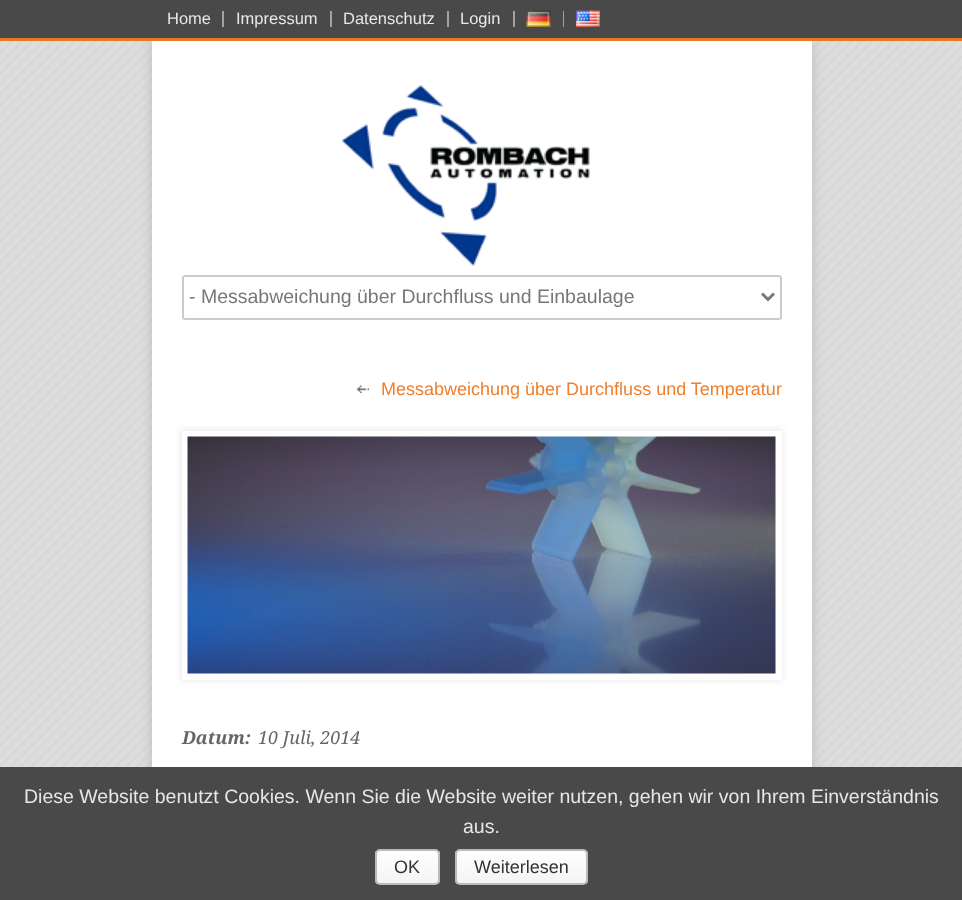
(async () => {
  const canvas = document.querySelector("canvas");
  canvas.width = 962;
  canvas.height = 900;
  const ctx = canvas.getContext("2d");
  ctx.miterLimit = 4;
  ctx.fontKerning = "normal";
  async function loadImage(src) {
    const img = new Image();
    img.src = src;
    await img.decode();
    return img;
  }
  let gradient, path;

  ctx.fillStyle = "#dddddd";
  ctx.fillRect(0, 0, 962, 900);
  ctx.drawImage(await loadImage("img/1.png"), 0, 41, 962, 726);
  ctx.fillStyle = "#bbbbbb";
  ctx.filter = "blur(6px)";
  ctx.beginPath();
  ctx.rect(152, 41, 660, 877);
  ctx.fill();
  ctx.filter = "none";
  for (const [x, y, w, h, color] of [
    [0, 0, 962, 38, "#494949"],
    [222, 11, 2, 16, "#a2a2a2"],
    [330, 11, 2, 16, "#a2a2a2"],
    [447, 11, 2, 16, "#a2a2a2"],
    [513, 11, 2, 16, "#a2a2a2"],
    [563, 11, 1, 16, "#a2a2a2"],
  ]) {
    ctx.fillStyle = color;
    ctx.fillRect(x, y, w, h);
  }
  ctx.drawImage(await loadImage("img/2.png"), 526, 10, 25, 17);
  ctx.drawImage(await loadImage("img/3.png"), 576, 10, 24, 17);
  ctx.fillStyle = "#e77927";
  ctx.fillRect(0, 38, 962, 3);
  ctx.fillStyle = "#ffffff";
  ctx.fillRect(152, 41, 660, 726);
  ctx.drawImage(await loadImage("img/4.png"), 342, 85, 248, 181);
  ctx.beginPath();
  ctx.roundRect(183, 276, 598, 43, 2);
  ctx.strokeStyle = "#cccccc";
  ctx.lineWidth = 2;
  ctx.stroke();
  path = new Path2D("M762 293.5L768 299.5L774 293.5");
  ctx.strokeStyle = "#777777";
  ctx.lineWidth = 3;
  ctx.stroke(path);
  ctx.drawImage(await loadImage("img/5.png"), 357, 385, 12, 8);
  ctx.save();
  path = new Path2D("M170 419H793V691H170ZM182 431H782V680H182Z");
  ctx.clip(path, "evenodd");
  ctx.fillStyle = "#ececec";
  ctx.filter = "blur(3px)";
  ctx.beginPath();
  ctx.rect(180, 429, 603, 252);
  ctx.fill();
  ctx.filter = "none";
  ctx.restore();
  ctx.drawImage(await loadImage("img/6.png"), 187, 436, 589, 238);
  ctx.fillStyle = "#494949";
  ctx.fillRect(0, 767, 962, 133);
  ctx.save();
  ctx.beginPath();
  ctx.roundRect(375, 849, 65, 36, 5);
  ctx.clip();
  gradient = ctx.createLinearGradient(407, 851, 407, 884);
  gradient.addColorStop(0, "#fefefe");
  gradient.addColorStop(1, "#f4f4f4");
  ctx.fillStyle = gradient;
  ctx.fillRect(375, 851, 65, 33);
  ctx.restore();
  ctx.beginPath();
  ctx.roundRect(376, 850, 63, 34, 4);
  ctx.strokeStyle = "#bbbbbb";
  ctx.lineWidth = 2;
  ctx.stroke();
  ctx.save();
  ctx.beginPath();
  ctx.roundRect(455, 849, 133, 36, 5);
  ctx.clip();
  gradient = ctx.createLinearGradient(521, 851, 521, 884);
  gradient.addColorStop(0, "#fefefe");
  gradient.addColorStop(1, "#f4f4f4");
  ctx.fillStyle = gradient;
  ctx.fillRect(455, 851, 133, 33);
  ctx.restore();
  ctx.beginPath();
  ctx.roundRect(456, 850, 131, 34, 4);
  ctx.stroke();
  ctx.font = "16.5px Liberation Sans";
  ctx.fillStyle = "#e7e7e7";
  for (const [text, x, y] of [
    ["Home", 167, 24],
    ["Impressum", 236, 24],
    ["Datenschutz", 343, 24],
    ["Login", 460, 24],
  ]) {
    ctx.fillText(text, x, y);
  }
  ctx.font = "19.5px Liberation Sans";
  ctx.fillStyle = "#777777";
  ctx.fillText("- Messabweichung über Durchfluss und Einbaulage", 189, 303);
  ctx.font = "18px Liberation Sans";
  ctx.fillStyle = "#ef7f2c";
  ctx.fillText("Messabweichung über Durchfluss und Temperatur", 381, 395);
  ctx.font = "italic bold 18px Droid Serif";
  ctx.fillStyle = "#666666";
  ctx.fillText("Datum:", 182, 744);
  ctx.font = "italic 18px Droid Serif";
  ctx.fillText("10 Juli, 2014", 258, 744);
  ctx.font = "19.5px Liberation Sans";
  ctx.fillStyle = "#e7e7e7";
  ctx.fillText("Diese Website benutzt Cookies. Wenn Sie die Website weiter nutzen, gehen wir von Ihrem Einverständnis", 24, 803);
  ctx.fillText("aus.", 463, 833);
  ctx.font = "18px Liberation Sans";
  ctx.fillStyle = "#333333";
  ctx.fillText("OK", 394, 873);
  ctx.fillText("Weiterlesen", 474, 873);
})();
